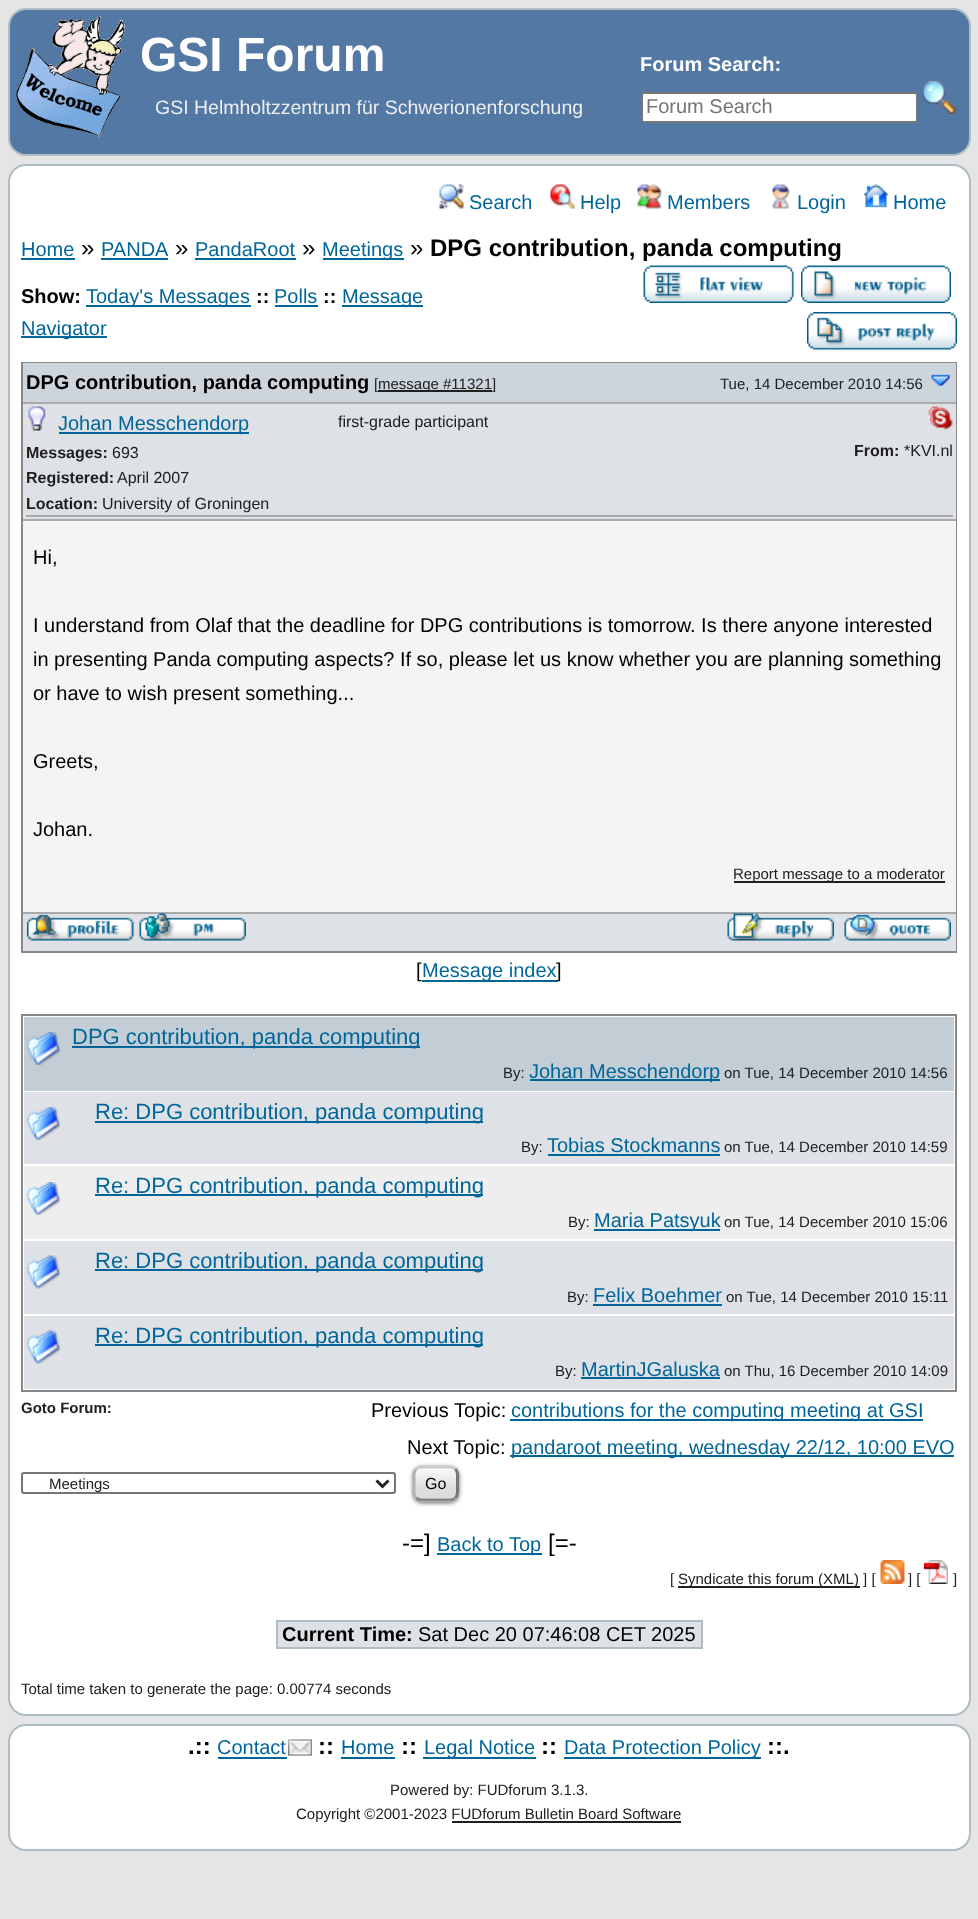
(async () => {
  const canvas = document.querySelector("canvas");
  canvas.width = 978;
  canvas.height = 1919;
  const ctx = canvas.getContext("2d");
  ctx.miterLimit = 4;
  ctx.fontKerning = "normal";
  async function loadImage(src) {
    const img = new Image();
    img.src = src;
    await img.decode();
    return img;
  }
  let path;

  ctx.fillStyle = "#e5e5e5";
  ctx.fillRect(0, 0, 978, 1919);
  ctx.fillStyle = "#5478a4";
  ctx.beginPath();
  ctx.roundRect(9, 9, 961, 146, 17);
  ctx.fill();
  ctx.strokeStyle = "#aebdc4";
  ctx.lineWidth = 2;
  ctx.stroke();
  ctx.drawImage(await loadImage("img/1.png"), 16, 16, 109, 121);
  ctx.fillStyle = "#ffffff";
  ctx.beginPath();
  ctx.roundRect(642, 93, 275, 29, 2);
  ctx.fill();
  ctx.strokeStyle = "#767676";
  ctx.stroke();
  ctx.drawImage(await loadImage("img/2.png"), 922, 81, 34, 33);
  ctx.beginPath();
  ctx.roundRect(9, 165, 961, 1550, 17);
  ctx.fill();
  ctx.strokeStyle = "#aebdc4";
  ctx.stroke();
  ctx.drawImage(await loadImage("img/3.png"), 439, 184, 25, 25);
  ctx.drawImage(await loadImage("img/4.png"), 550, 184, 25, 25);
  ctx.drawImage(await loadImage("img/5.png"), 637, 184, 25, 25);
  ctx.drawImage(await loadImage("img/6.png"), 772, 184, 18, 25);
  ctx.drawImage(await loadImage("img/7.png"), 864, 184, 24, 24);
  for (const [x, y, w, h, color] of [
    [21, 258, 54, 2, "#006699"],
    [101, 258, 67, 2, "#006699"],
    [195, 258, 101, 2, "#006699"],
    [323, 258, 81, 2, "#006699"],
    [86, 305, 165, 2, "#006699"],
    [275, 305, 43, 2, "#006699"],
    [342, 305, 81, 2, "#006699"],
    [21, 336, 86, 2, "#006699"],
  ]) {
    ctx.fillStyle = color;
    ctx.fillRect(x, y, w, h);
  }
  ctx.drawImage(await loadImage("img/8.png"), 643, 265, 151, 38);
  ctx.drawImage(await loadImage("img/9.png"), 801, 265, 150, 38);
  ctx.drawImage(await loadImage("img/10.png"), 807, 312, 150, 38);
  ctx.strokeStyle = "#888888";
  ctx.strokeRect(22, 363, 934, 589);
  for (const [x, y, w, h, color] of [
    [23, 363, 933, 39, "#ccd4dc"],
    [23, 402, 933, 2, "#aaaaaa"],
    [378, 390, 114, 2, "#202020"],
  ]) {
    ctx.fillStyle = color;
    ctx.fillRect(x, y, w, h);
  }
  ctx.drawImage(await loadImage("img/11.png"), 931, 374, 19, 12);
  for (const [x, y, w, h, color] of [
    [23, 404, 933, 115, "#dee2e6"],
    [23, 519, 933, 2, "#aaaaaa"],
    [26, 515, 927, 2, "#aaaaaa"],
  ]) {
    ctx.fillStyle = color;
    ctx.fillRect(x, y, w, h);
  }
  ctx.drawImage(await loadImage("img/12.png"), 28, 406, 18, 25);
  ctx.fillStyle = "#006699";
  ctx.fillRect(59, 432, 190, 2);
  ctx.drawImage(await loadImage("img/13.png"), 928, 406, 25, 24);
  for (const [x, y, w, h, color] of [
    [23, 521, 933, 391, "#f4f4f4"],
    [23, 912, 933, 2, "#aaaaaa"],
    [734, 881, 211, 2, "#202020"],
    [23, 914, 933, 37, "#dee2e6"],
  ]) {
    ctx.fillStyle = color;
    ctx.fillRect(x, y, w, h);
  }
  ctx.drawImage(await loadImage("img/14.png"), 27, 914, 107, 27);
  ctx.drawImage(await loadImage("img/15.png"), 139, 913, 107, 28);
  ctx.drawImage(await loadImage("img/16.png"), 727, 913, 107, 28);
  ctx.drawImage(await loadImage("img/17.png"), 844, 914, 107, 27);
  ctx.fillStyle = "#006699";
  ctx.fillRect(422, 980, 135, 2);
  ctx.strokeRect(22, 1015, 934, 376);
  ctx.fillStyle = "#c2cdd6";
  ctx.fillRect(24, 1017, 930, 74);
  ctx.drawImage(await loadImage("img/18.png"), 27, 1032, 33, 33);
  for (const [x, y, w, h, color] of [
    [72, 1046, 348, 2, "#006699"],
    [530, 1079, 190, 2, "#006699"],
    [24, 1092, 930, 72, "#dee2e6"],
  ]) {
    ctx.fillStyle = color;
    ctx.fillRect(x, y, w, h);
  }
  ctx.drawImage(await loadImage("img/19.png"), 27, 1107, 33, 33);
  for (const [x, y, w, h, color] of [
    [95, 1121, 388, 2, "#006699"],
    [548, 1154, 172, 2, "#006699"],
    [24, 1166, 930, 73, "#eeeeee"],
  ]) {
    ctx.fillStyle = color;
    ctx.fillRect(x, y, w, h);
  }
  ctx.drawImage(await loadImage("img/20.png"), 27, 1182, 33, 33);
  for (const [x, y, w, h, color] of [
    [95, 1194, 388, 2, "#006699"],
    [594, 1229, 126, 2, "#006699"],
    [24, 1241, 930, 73, "#dee2e6"],
  ]) {
    ctx.fillStyle = color;
    ctx.fillRect(x, y, w, h);
  }
  ctx.drawImage(await loadImage("img/21.png"), 27, 1255, 33, 34);
  for (const [x, y, w, h, color] of [
    [95, 1269, 388, 2, "#006699"],
    [593, 1304, 129, 2, "#006699"],
    [24, 1316, 930, 73, "#dee2e6"],
  ]) {
    ctx.fillStyle = color;
    ctx.fillRect(x, y, w, h);
  }
  ctx.drawImage(await loadImage("img/21.png"), 27, 1330, 33, 34);
  for (const [x, y, w, h, color] of [
    [95, 1344, 388, 2, "#006699"],
    [581, 1377, 139, 2, "#006699"],
    [510, 1419, 413, 2, "#006699"],
    [510, 1455, 444, 2, "#006699"],
  ]) {
    ctx.fillStyle = color;
    ctx.fillRect(x, y, w, h);
  }
  ctx.beginPath();
  ctx.roundRect(22, 1473, 373, 20, 2);
  ctx.strokeStyle = "#767676";
  ctx.stroke();
  path = new Path2D("M376.5 1480.5L382.5 1486.5L388.5 1480.5");
  ctx.strokeStyle = "#202020";
  ctx.lineWidth = 3;
  ctx.stroke(path);
  ctx.fillStyle = "rgba(0, 0, 0, 0.6)";
  ctx.filter = "blur(2px)";
  ctx.beginPath();
  ctx.roundRect(413, 1467, 46, 36, 9);
  ctx.fill();
  ctx.filter = "none";
  ctx.fillStyle = "#dddddd";
  ctx.beginPath();
  ctx.roundRect(413, 1466, 46, 36, 9);
  ctx.fill();
  ctx.drawImage(await loadImage("img/22.png"), 413, 1468, 46, 19);
  path = new Path2D("M416 1469C417.5 1468 419.5 1467 421.5 1467H450C452 1467 454 1468 455.5 1469");
  ctx.strokeStyle = "#cccccc";
  ctx.stroke(path);
  path = new Path2D("M455.5 1469C456.5 1470.5 457.5 1472.5 457.5 1474.5V1492.5C457.5 1494.5 456.5 1496.5 455.5 1498");
  ctx.strokeStyle = "#787778";
  ctx.stroke(path);
  path = new Path2D("M455.5 1498C454 1499 452 1500 450 1500H421.5C419.5 1500 417.5 1499 416 1498");
  ctx.strokeStyle = "#888888";
  ctx.stroke(path);
  path = new Path2D("M416 1498C415 1496.5 414 1494.5 414 1492.5V1474.5C414 1472.5 415 1470.5 416 1469");
  ctx.strokeStyle = "#b4b2b4";
  ctx.stroke(path);
  ctx.fillStyle = "#006699";
  ctx.fillRect(437, 1553, 105, 2);
  ctx.fillStyle = "#202020";
  ctx.fillRect(678, 1586, 182, 2);
  ctx.drawImage(await loadImage("img/23.png"), 880, 1560, 25, 24);
  ctx.drawImage(await loadImage("img/24.png"), 924, 1560, 24, 24);
  for (const [x, y, w, h, color] of [
    [276, 1620, 426, 2, "#aebdc4"],
    [276, 1647, 137, 2, "#aebdc4"],
    [276, 1620, 2, 29, "#aebdc4"],
    [278, 1622, 423, 25, "#dee2e6"],
    [701, 1620, 2, 29, "#aebdc4"],
    [413, 1647, 289, 2, "#aebdc4"],
  ]) {
    ctx.fillStyle = color;
    ctx.fillRect(x, y, w, h);
  }
  ctx.fillStyle = "#ffffff";
  ctx.beginPath();
  ctx.roundRect(9, 1725, 961, 125, 17);
  ctx.fill();
  ctx.strokeStyle = "#aebdc4";
  ctx.lineWidth = 2;
  ctx.stroke();
  ctx.fillStyle = "#006699";
  ctx.fillRect(218, 1757, 69, 2);
  ctx.drawImage(await loadImage("img/25.png"), 288, 1739, 24, 17);
  for (const [x, y, w, h, color] of [
    [341, 1757, 54, 2, "#006699"],
    [423, 1757, 113, 2, "#006699"],
    [564, 1757, 197, 2, "#006699"],
    [452, 1821, 229, 2, "#202020"],
  ]) {
    ctx.fillStyle = color;
    ctx.fillRect(x, y, w, h);
  }
  ctx.font = "bold 48px Liberation Sans";
  ctx.fillStyle = "#ffffff";
  ctx.fillText("GSI Forum", 140, 71);
  ctx.font = "bold 20px Liberation Sans";
  ctx.fillText("Forum Search:", 640, 71);
  ctx.font = "20px Liberation Sans";
  ctx.fillStyle = "#757575";
  ctx.fillText("Forum Search", 646, 113);
  ctx.font = "19.5px Liberation Sans";
  ctx.fillStyle = "#eeeeee";
  ctx.fillText("GSI Helmholtzzentrum für Schwerionenforschung", 155, 114);
  ctx.font = "20px Liberation Sans";
  ctx.fillStyle = "#006699";
  for (const [text, x, y] of [
    ["Search", 469, 209],
    ["Help", 580, 209],
    ["Members", 667, 209],
    ["Login", 797, 209],
    ["Home", 893, 209],
    ["Home", 21, 256],
  ]) {
    ctx.fillText(text, x, y);
  }
  ctx.font = "24px Liberation Sans";
  ctx.fillStyle = "#000000";
  ctx.fillText("»", 81, 256);
  ctx.font = "20px Liberation Sans";
  ctx.fillStyle = "#006699";
  ctx.fillText("PANDA", 101, 256);
  ctx.font = "24px Liberation Sans";
  ctx.fillStyle = "#000000";
  ctx.fillText("»", 175, 256);
  ctx.font = "20px Liberation Sans";
  ctx.fillStyle = "#006699";
  ctx.fillText("PandaRoot", 195, 256);
  ctx.font = "24px Liberation Sans";
  ctx.fillStyle = "#000000";
  ctx.fillText("»", 302, 256);
  ctx.font = "20px Liberation Sans";
  ctx.fillStyle = "#006699";
  ctx.fillText("Meetings", 322, 256);
  ctx.font = "24px Liberation Sans";
  ctx.fillStyle = "#000000";
  ctx.fillText("»", 410, 256);
  ctx.font = "bold 24px Liberation Sans";
  ctx.fillText("DPG contribution, panda computing", 430, 256);
  ctx.font = "bold 20px Liberation Sans";
  ctx.fillText("Show:", 21, 303);
  ctx.font = "20px Liberation Sans";
  ctx.fillStyle = "#006699";
  ctx.fillText("Today's Messages", 86, 303);
  ctx.font = "bold 20px Liberation Sans";
  ctx.fillStyle = "#000000";
  ctx.fillText("::", 256, 303);
  ctx.font = "20px Liberation Sans";
  ctx.fillStyle = "#006699";
  ctx.fillText("Polls", 274, 303);
  ctx.font = "bold 20px Liberation Sans";
  ctx.fillStyle = "#000000";
  ctx.fillText("::", 323, 303);
  ctx.font = "20px Liberation Sans";
  ctx.fillStyle = "#006699";
  ctx.fillText("Message", 342, 303);
  ctx.fillText("Navigator", 21, 335);
  ctx.font = "bold 20px Liberation Sans";
  ctx.fillStyle = "#000000";
  ctx.fillText("DPG contribution, panda computing", 26, 389);
  ctx.font = "15px Liberation Sans";
  ctx.fillStyle = "#202020";
  for (const [text, x, y] of [
    ["[", 374, 389],
    ["message #11321]", 378, 389],
    ["Tue, 14 December 2010 14:56", 720, 389],
  ]) {
    ctx.fillText(text, x, y);
  }
  ctx.font = "20px Liberation Sans";
  ctx.fillStyle = "#006699";
  ctx.fillText("Johan Messchendorp", 58, 430);
  ctx.font = "bold 16px Liberation Sans";
  ctx.fillStyle = "#202020";
  ctx.fillText("Messages:", 26, 458);
  ctx.font = "16px Liberation Sans";
  ctx.fillText("693", 112, 458);
  ctx.font = "bold 16px Liberation Sans";
  ctx.fillText("Registered:", 26, 483);
  ctx.font = "16px Liberation Sans";
  ctx.fillText("April 2007", 117, 483);
  ctx.font = "bold 16px Liberation Sans";
  ctx.fillText("Location:", 26, 509);
  ctx.font = "16px Liberation Sans";
  ctx.fillText("University of Groningen", 102, 509);
  ctx.fillText("first-grade participant", 338, 427);
  ctx.font = "bold 16px Liberation Sans";
  ctx.fillText("From:", 854, 456);
  ctx.font = "16px Liberation Sans";
  ctx.fillText("*KVI.nl", 904, 456);
  ctx.font = "20px Liberation Sans";
  ctx.fillStyle = "#000000";
  for (const [text, x, y] of [
    ["Hi,", 33, 564],
    ["I understand from Olaf that the deadline for DPG contributions is tomorrow. Is there anyone interested", 33, 632],
    ["in presenting Panda computing aspects? If so, please let us know whether you are planning something", 33, 666],
    ["or have to wish present something...", 33, 700],
    ["Greets,", 33, 768],
    ["Johan.", 33, 836],
  ]) {
    ctx.fillText(text, x, y);
  }
  ctx.font = "15px Liberation Sans";
  ctx.fillStyle = "#202020";
  ctx.fillText("Report message to a moderator", 733, 879);
  ctx.font = "20px Liberation Sans";
  ctx.fillStyle = "#000000";
  ctx.fillText("[", 416, 977);
  ctx.fillStyle = "#006699";
  ctx.fillText("Message index", 422, 977);
  ctx.fillStyle = "#000000";
  ctx.fillText("]", 556, 977);
  ctx.font = "22px Liberation Sans";
  ctx.fillStyle = "#006699";
  ctx.fillText("DPG contribution, panda computing", 72, 1044);
  ctx.font = "15px Liberation Sans";
  ctx.fillStyle = "#202020";
  ctx.fillText("By:", 503, 1078);
  ctx.font = "20px Liberation Sans";
  ctx.fillStyle = "#006699";
  ctx.fillText("Johan Messchendorp", 529, 1078);
  ctx.font = "15px Liberation Sans";
  ctx.fillStyle = "#202020";
  ctx.fillText("on Tue, 14 December 2010 14:56", 724, 1078);
  ctx.font = "22px Liberation Sans";
  ctx.fillStyle = "#006699";
  ctx.fillText("Re: DPG contribution, panda computing", 95, 1119);
  ctx.font = "15px Liberation Sans";
  ctx.fillStyle = "#202020";
  ctx.fillText("By:", 521, 1152);
  ctx.font = "20px Liberation Sans";
  ctx.fillStyle = "#006699";
  ctx.fillText("Tobias Stockmanns", 547, 1152);
  ctx.font = "15px Liberation Sans";
  ctx.fillStyle = "#202020";
  ctx.fillText("on Tue, 14 December 2010 14:59", 724, 1152);
  ctx.font = "22px Liberation Sans";
  ctx.fillStyle = "#006699";
  ctx.fillText("Re: DPG contribution, panda computing", 95, 1193);
  ctx.font = "15px Liberation Sans";
  ctx.fillStyle = "#202020";
  ctx.fillText("By:", 568, 1227);
  ctx.font = "20px Liberation Sans";
  ctx.fillStyle = "#006699";
  ctx.fillText("Maria Patsyuk", 594, 1227);
  ctx.font = "15px Liberation Sans";
  ctx.fillStyle = "#202020";
  ctx.fillText("on Tue, 14 December 2010 15:06", 724, 1227);
  ctx.font = "22px Liberation Sans";
  ctx.fillStyle = "#006699";
  ctx.fillText("Re: DPG contribution, panda computing", 95, 1268);
  ctx.font = "15px Liberation Sans";
  ctx.fillStyle = "#202020";
  ctx.fillText("By:", 567, 1302);
  ctx.font = "20px Liberation Sans";
  ctx.fillStyle = "#006699";
  ctx.fillText("Felix Boehmer", 593, 1302);
  ctx.font = "15px Liberation Sans";
  ctx.fillStyle = "#202020";
  ctx.fillText("on Tue, 14 December 2010 15:11", 726, 1302);
  ctx.font = "22px Liberation Sans";
  ctx.fillStyle = "#006699";
  ctx.fillText("Re: DPG contribution, panda computing", 95, 1343);
  ctx.font = "15px Liberation Sans";
  ctx.fillStyle = "#202020";
  ctx.fillText("By:", 555, 1376);
  ctx.font = "20px Liberation Sans";
  ctx.fillStyle = "#006699";
  ctx.fillText("MartinJGaluska", 581, 1376);
  ctx.font = "15px Liberation Sans";
  ctx.fillStyle = "#202020";
  ctx.fillText("on Thu, 16 December 2010 14:09", 724, 1376);
  ctx.font = "bold 15px Liberation Sans";
  ctx.fillText("Goto Forum:", 21, 1413);
  ctx.font = "20px Liberation Sans";
  ctx.fillStyle = "#000000";
  ctx.fillText("Previous Topic:", 371, 1417);
  ctx.fillStyle = "#006699";
  ctx.fillText("contributions for the computing meeting at GSI", 511, 1417);
  ctx.fillStyle = "#000000";
  ctx.fillText("Next Topic:", 407, 1454);
  ctx.fillStyle = "#006699";
  ctx.fillText("pandaroot meeting, wednesday 22/12, 10:00 EVO", 511, 1454);
  ctx.font = "15px Liberation Sans";
  ctx.fillStyle = "#202020";
  ctx.fillText("Meetings", 49, 1489);
  ctx.font = "16px Liberation Sans";
  ctx.fillStyle = "#000000";
  ctx.fillText("Go", 425, 1489);
  ctx.font = "24px Liberation Sans";
  ctx.fillText("-=]", 402, 1551);
  ctx.font = "20px Liberation Sans";
  ctx.fillStyle = "#006699";
  ctx.fillText("Back to Top", 437, 1551);
  ctx.font = "24px Liberation Sans";
  ctx.fillStyle = "#000000";
  ctx.fillText("[=-", 548, 1551);
  ctx.font = "15px Liberation Sans";
  ctx.fillStyle = "#202020";
  for (const [text, x, y] of [
    ["[", 670, 1584],
    ["Syndicate this forum (XML) ] [", 678, 1584],
    ["] [", 908, 1584],
    ["]", 953, 1584],
  ]) {
    ctx.fillText(text, x, y);
  }
  ctx.font = "bold 20px Liberation Sans";
  ctx.fillStyle = "#000000";
  ctx.fillText("Current Time:", 282, 1641);
  ctx.font = "20px Liberation Sans";
  ctx.fillText("Sat Dec 20 07:46:08 CET 2025", 418, 1641);
  ctx.font = "15px Liberation Sans";
  ctx.fillStyle = "#202020";
  ctx.fillText("Total time taken to generate the page: 0.00774 seconds", 21, 1694);
  ctx.font = "bold 24px Liberation Sans";
  ctx.fillStyle = "#000000";
  ctx.fillText(".::", 188, 1754);
  ctx.font = "20px Liberation Sans";
  ctx.fillStyle = "#006699";
  ctx.fillText("Contact", 217, 1754);
  ctx.font = "bold 24px Liberation Sans";
  ctx.fillStyle = "#000000";
  ctx.fillText("::", 318, 1754);
  ctx.font = "20px Liberation Sans";
  ctx.fillStyle = "#006699";
  ctx.fillText("Home", 341, 1754);
  ctx.font = "bold 24px Liberation Sans";
  ctx.fillStyle = "#000000";
  ctx.fillText("::", 401, 1754);
  ctx.font = "20px Liberation Sans";
  ctx.fillStyle = "#006699";
  ctx.fillText("Legal Notice", 424, 1754);
  ctx.font = "bold 24px Liberation Sans";
  ctx.fillStyle = "#000000";
  ctx.fillText("::", 541, 1754);
  ctx.font = "20px Liberation Sans";
  ctx.fillStyle = "#006699";
  ctx.fillText("Data Protection Policy", 564, 1754);
  ctx.font = "bold 24px Liberation Sans";
  ctx.fillStyle = "#000000";
  ctx.fillText("::.", 767, 1754);
  ctx.font = "15px Liberation Sans";
  ctx.fillStyle = "#202020";
  ctx.fillText("Powered by: FUDforum 3.1.3.", 390, 1795);
  ctx.fillText("Copyright ©2001-2023 FUDforum Bulletin Board Software", 296, 1819);
})();
